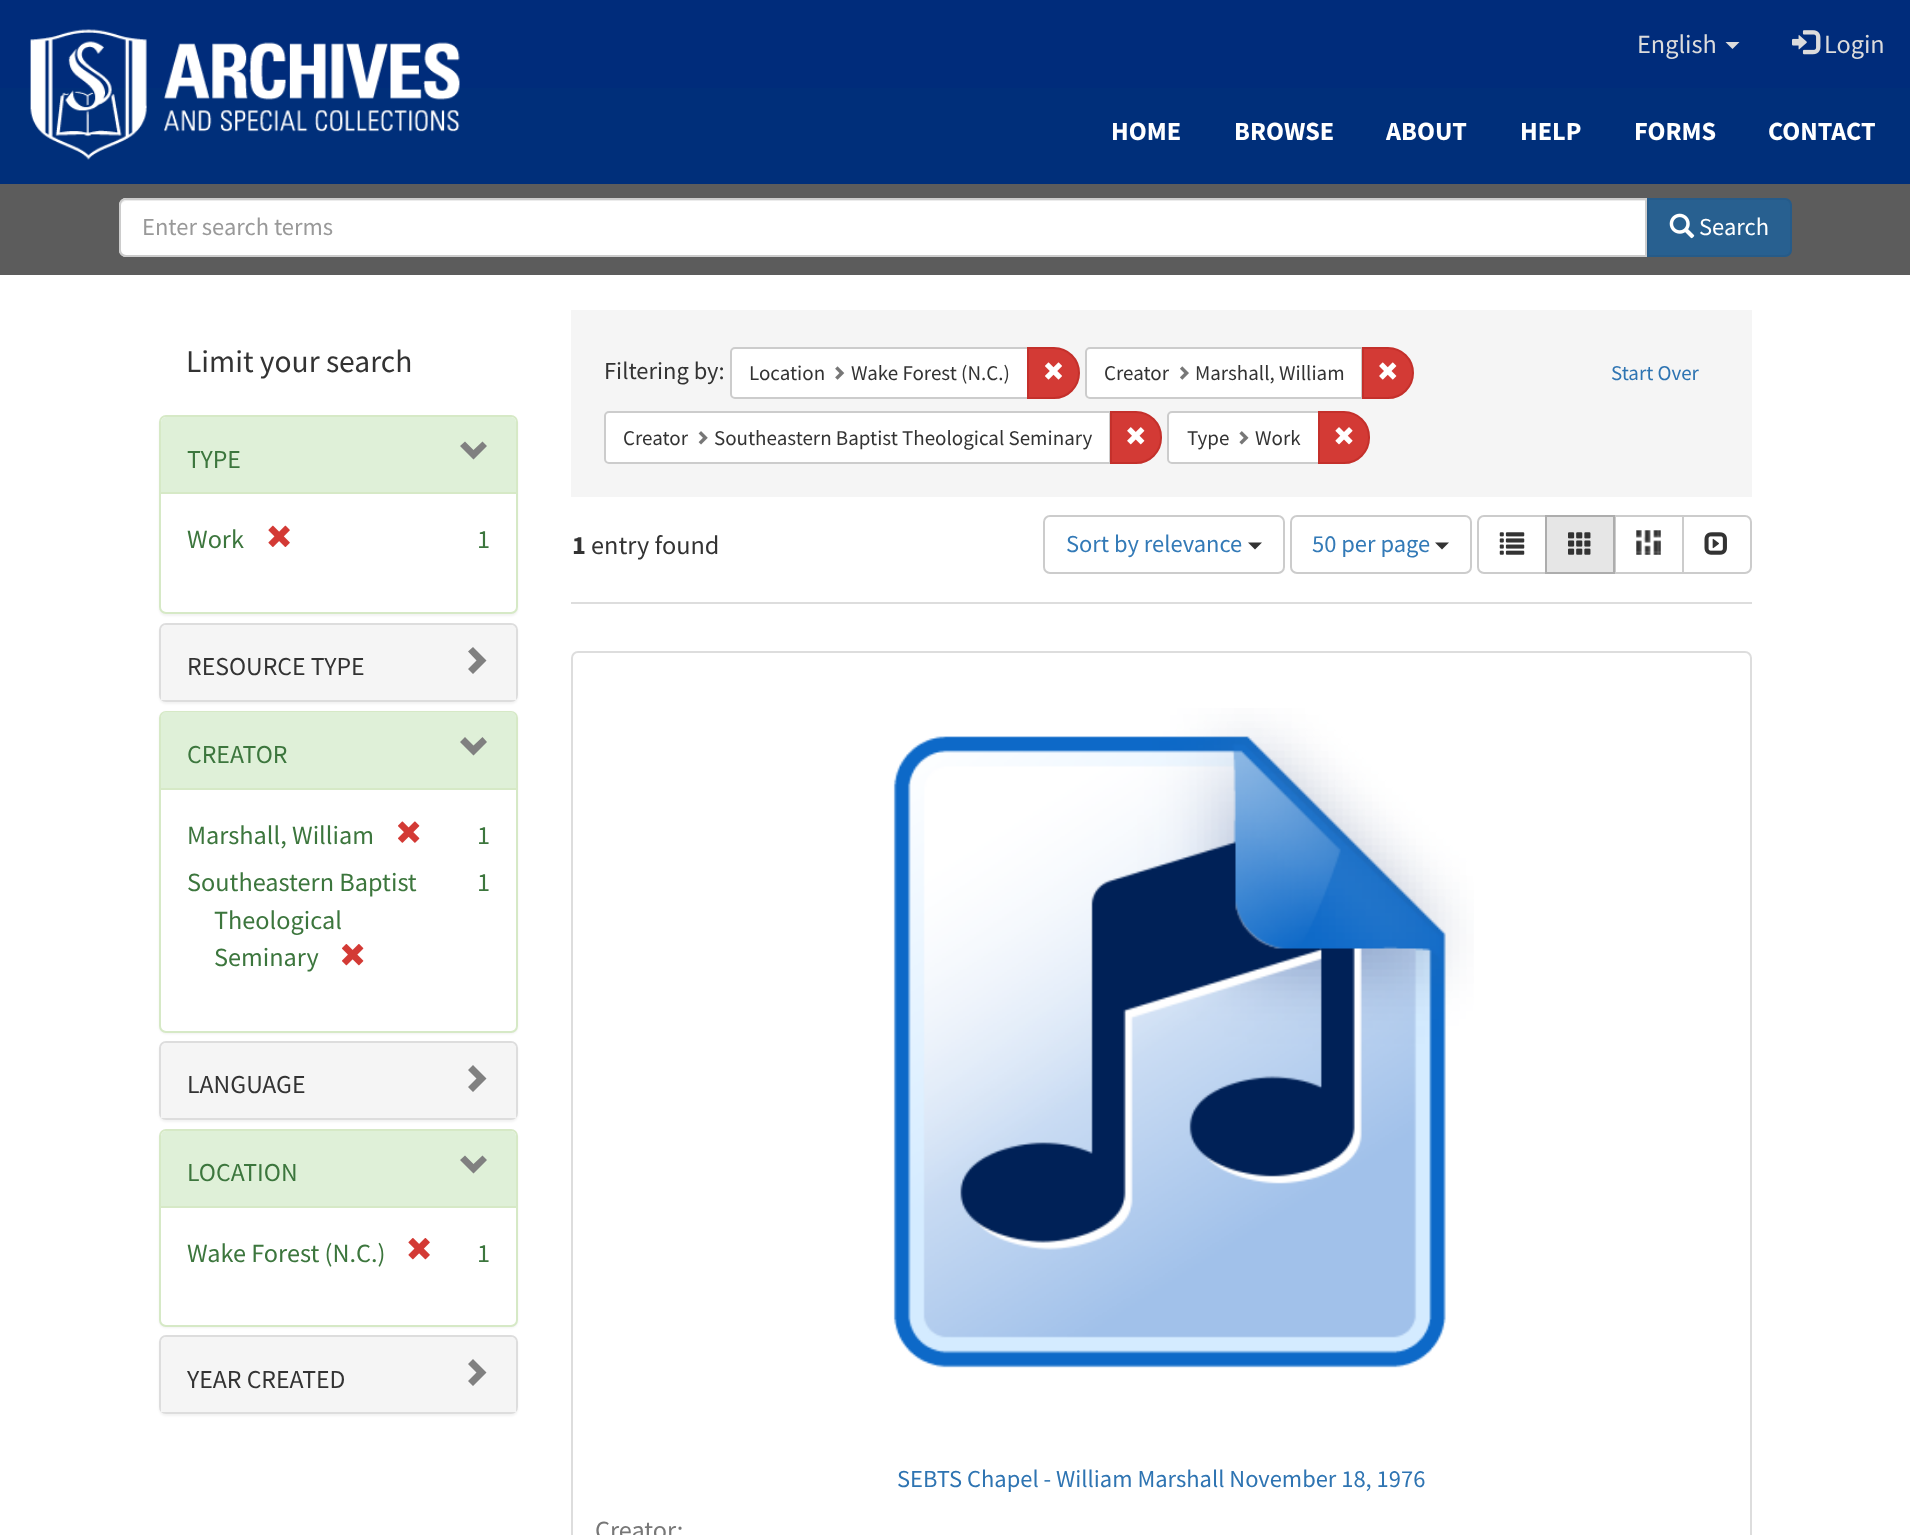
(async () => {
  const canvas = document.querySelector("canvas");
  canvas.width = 1910;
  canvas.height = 1535;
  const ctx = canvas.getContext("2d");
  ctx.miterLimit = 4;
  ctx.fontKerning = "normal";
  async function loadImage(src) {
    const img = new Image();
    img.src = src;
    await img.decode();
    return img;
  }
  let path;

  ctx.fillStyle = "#ffffff";
  ctx.fillRect(0, 0, 1910, 1535);
  ctx.fillStyle = "#002f7a";
  ctx.fillRect(0, 88, 1910, 96);
  ctx.fillStyle = "#002c7b";
  ctx.fillRect(0, 0, 1910, 88);
  ctx.drawImage(await loadImage("img/1.png"), 30, 29, 430, 131);
  ctx.fillStyle = "#dcdcdc";
  path = new Path2D("M1725.5 42H1739.5L1732.5 49Z");
  ctx.fill(path);
  ctx.drawImage(await loadImage("img/2.png"), 1792, 30, 29, 25);
  ctx.fillStyle = "#5c5c5c";
  ctx.fillRect(0, 184, 1910, 91);
  ctx.fillStyle = "#ffffff";
  ctx.beginPath();
  ctx.roundRect(119, 198, 1528, 59, [7, 0, 0, 7]);
  ctx.fill();
  ctx.fillStyle = "#ececec";
  path = new Path2D("M126 201H1645V200H126C123 200 121 203 121 206C121 204 123 201 126 201Z");
  ctx.fill(path);
  ctx.beginPath();
  ctx.roundRect(120, 199, 1526, 57, [6, 0, 0, 6]);
  ctx.strokeStyle = "#cccccc";
  ctx.lineWidth = 2;
  ctx.stroke();
  ctx.fillStyle = "#286090";
  ctx.beginPath();
  ctx.roundRect(1648, 199, 143, 57, [0, 6, 6, 0]);
  ctx.fill();
  ctx.strokeStyle = "#265b89";
  ctx.stroke();
  ctx.drawImage(await loadImage("img/3.png"), 1669, 213, 26, 26);
  ctx.fillStyle = "rgba(0, 0, 0, 0.05)";
  ctx.filter = "blur(1px)";
  ctx.beginPath();
  ctx.roundRect(159, 417, 359, 199, 7);
  ctx.fill();
  ctx.filter = "none";
  ctx.fillStyle = "#ffffff";
  ctx.beginPath();
  ctx.roundRect(160, 416, 357, 197, 6);
  ctx.fill();
  ctx.strokeStyle = "#d6e9c6";
  ctx.stroke();
  ctx.fillStyle = "#dff0d8";
  ctx.beginPath();
  ctx.roundRect(161, 417, 355, 75, [5, 5, 0, 0]);
  ctx.fill();
  ctx.fillStyle = "#808080";
  path = new Path2D("M487 446L473.5 459.5L460 446L465 441.5L473.5 450L482.5 441.5Z");
  ctx.fill(path);
  ctx.fillStyle = "#d6e9c6";
  ctx.fillRect(161, 492, 355, 2);
  ctx.drawImage(await loadImage("img/4.png"), 268, 525, 22, 22);
  ctx.fillStyle = "rgba(0, 0, 0, 0.05)";
  ctx.filter = "blur(1px)";
  ctx.beginPath();
  ctx.roundRect(159, 625, 359, 79, 7);
  ctx.fill();
  ctx.filter = "none";
  ctx.beginPath();
  ctx.roundRect(160, 624, 357, 77, 6);
  ctx.strokeStyle = "#dddddd";
  ctx.stroke();
  ctx.fillStyle = "#f5f5f5";
  ctx.beginPath();
  ctx.roundRect(161, 625, 355, 75, [5, 5, 0, 0]);
  ctx.fill();
  ctx.fillStyle = "#808080";
  path = new Path2D("M486.5 660.5L473 674L468 669L476.5 660.5L468 651.5L473 647Z");
  ctx.fill(path);
  ctx.fillStyle = "rgba(0, 0, 0, 0.05)";
  ctx.filter = "blur(1px)";
  ctx.beginPath();
  ctx.roundRect(159, 712, 359, 322, 7);
  ctx.fill();
  ctx.filter = "none";
  ctx.fillStyle = "#ffffff";
  ctx.beginPath();
  ctx.roundRect(160, 712, 357, 320, 6);
  ctx.fill();
  ctx.strokeStyle = "#d6e9c6";
  ctx.stroke();
  ctx.fillStyle = "#dff0d8";
  ctx.beginPath();
  ctx.roundRect(161, 712, 355, 76, [5, 5, 0, 0]);
  ctx.fill();
  ctx.fillStyle = "#808080";
  path = new Path2D("M487 742L473.5 755.5L460 742L465 737L473.5 745.5L482.5 737Z");
  ctx.fill(path);
  ctx.fillStyle = "#d6e9c6";
  ctx.fillRect(161, 788, 355, 2);
  ctx.drawImage(await loadImage("img/5.png"), 398, 821, 22, 22);
  ctx.drawImage(await loadImage("img/6.png"), 342, 944, 22, 22);
  ctx.fillStyle = "rgba(0, 0, 0, 0.05)";
  ctx.filter = "blur(1px)";
  ctx.beginPath();
  ctx.roundRect(159, 1043, 359, 79, 7);
  ctx.fill();
  ctx.filter = "none";
  ctx.beginPath();
  ctx.roundRect(160, 1042, 357, 77, 6);
  ctx.strokeStyle = "#dddddd";
  ctx.stroke();
  ctx.fillStyle = "#f5f5f5";
  ctx.beginPath();
  ctx.roundRect(161, 1043, 355, 75, [5, 5, 0, 0]);
  ctx.fill();
  ctx.fillStyle = "#808080";
  path = new Path2D("M486.5 1078.5L473 1092L468 1087L476.5 1078.5L468 1070L473 1065Z");
  ctx.fill(path);
  ctx.fillStyle = "rgba(0, 0, 0, 0.05)";
  ctx.filter = "blur(1px)";
  ctx.beginPath();
  ctx.roundRect(159, 1131, 359, 197, 7);
  ctx.fill();
  ctx.filter = "none";
  ctx.fillStyle = "#ffffff";
  ctx.beginPath();
  ctx.roundRect(160, 1130, 357, 196, 6);
  ctx.fill();
  ctx.strokeStyle = "#d6e9c6";
  ctx.stroke();
  ctx.fillStyle = "#dff0d8";
  ctx.beginPath();
  ctx.roundRect(161, 1131, 355, 75, [5, 5, 0, 0]);
  ctx.fill();
  ctx.fillStyle = "#808080";
  path = new Path2D("M487 1160L473.5 1173.5L460 1160L465 1155.5L473.5 1164L482.5 1155.5Z");
  ctx.fill(path);
  ctx.fillStyle = "#d6e9c6";
  ctx.fillRect(161, 1206, 355, 2);
  ctx.drawImage(await loadImage("img/7.png"), 408, 1238, 22, 22);
  ctx.fillStyle = "rgba(0, 0, 0, 0.05)";
  ctx.filter = "blur(1px)";
  ctx.beginPath();
  ctx.roundRect(159, 1337, 359, 79, 7);
  ctx.fill();
  ctx.filter = "none";
  ctx.beginPath();
  ctx.roundRect(160, 1336, 357, 77, 6);
  ctx.strokeStyle = "#dddddd";
  ctx.stroke();
  ctx.fillStyle = "#f5f5f5";
  ctx.beginPath();
  ctx.roundRect(161, 1337, 355, 75, [5, 5, 0, 0]);
  ctx.fill();
  ctx.fillStyle = "#808080";
  path = new Path2D("M486.5 1372.5L473 1386L468 1381L476.5 1372.5L468 1364L473 1359Z");
  ctx.fill(path);
  ctx.fillStyle = "#f5f5f5";
  ctx.fillRect(571, 310, 1181, 187);
  ctx.fillStyle = "#ffffff";
  ctx.beginPath();
  ctx.roundRect(731, 348, 297, 50, [4, 0, 0, 4]);
  ctx.fill();
  ctx.strokeStyle = "#cccccc";
  ctx.stroke();
  ctx.drawImage(await loadImage("img/8.png"), 835, 366, 10, 14);
  ctx.fillStyle = "#d33a35";
  ctx.beginPath();
  ctx.roundRect(1028, 348, 51, 50, [0, 25, 25, 0]);
  ctx.fill();
  ctx.strokeStyle = "#c4302b";
  ctx.stroke();
  ctx.drawImage(await loadImage("img/9.png"), 1045, 362, 17, 18);
  ctx.fillStyle = "#ffffff";
  ctx.beginPath();
  ctx.roundRect(1086, 348, 276, 50, [4, 0, 0, 4]);
  ctx.fill();
  ctx.strokeStyle = "#cccccc";
  ctx.stroke();
  ctx.drawImage(await loadImage("img/10.png"), 1180, 366, 9, 14);
  ctx.fillStyle = "#d33a35";
  ctx.beginPath();
  ctx.roundRect(1363, 348, 50, 50, [0, 25, 25, 0]);
  ctx.fill();
  ctx.strokeStyle = "#c4302b";
  ctx.stroke();
  ctx.drawImage(await loadImage("img/11.png"), 1379, 362, 18, 18);
  ctx.fillStyle = "#ffffff";
  ctx.beginPath();
  ctx.roundRect(605, 412, 505, 51, [4, 0, 0, 4]);
  ctx.fill();
  ctx.strokeStyle = "#cccccc";
  ctx.stroke();
  ctx.drawImage(await loadImage("img/12.png"), 698, 431, 10, 14);
  ctx.fillStyle = "#d33a35";
  ctx.beginPath();
  ctx.roundRect(1111, 412, 50, 51, [0, 25, 25, 0]);
  ctx.fill();
  ctx.strokeStyle = "#c4302b";
  ctx.stroke();
  ctx.drawImage(await loadImage("img/13.png"), 1127, 427, 18, 18);
  ctx.fillStyle = "#ffffff";
  ctx.beginPath();
  ctx.roundRect(1168, 412, 151, 51, [4, 0, 0, 4]);
  ctx.fill();
  ctx.strokeStyle = "#cccccc";
  ctx.stroke();
  ctx.drawImage(await loadImage("img/14.png"), 1239, 431, 10, 14);
  ctx.fillStyle = "#d33a35";
  ctx.beginPath();
  ctx.roundRect(1319, 412, 50, 51, [0, 25, 25, 0]);
  ctx.fill();
  ctx.strokeStyle = "#c4302b";
  ctx.stroke();
  ctx.drawImage(await loadImage("img/15.png"), 1335, 427, 18, 18);
  ctx.fillStyle = "#dddddd";
  ctx.fillRect(571, 602, 1181, 2);
  ctx.beginPath();
  ctx.roundRect(1044, 516, 240, 57, 6);
  ctx.strokeStyle = "#cccccc";
  ctx.stroke();
  ctx.fillStyle = "#333333";
  path = new Path2D("M1248 542.5H1262L1255 549.5Z");
  ctx.fill(path);
  ctx.beginPath();
  ctx.roundRect(1291, 516, 180, 57, 6);
  ctx.stroke();
  path = new Path2D("M1435 542.5H1449L1442 549.5Z");
  ctx.fill(path);
  ctx.beginPath();
  ctx.roundRect(1478, 516, 68, 57, [6, 0, 0, 6]);
  ctx.stroke();
  ctx.drawImage(await loadImage("img/16.png"), 1499, 532, 26, 23);
  ctx.strokeRect(1615, 516, 68, 57);
  ctx.fillStyle = "#e6e6e6";
  ctx.beginPath();
  ctx.rect(1546, 516, 68, 57);
  ctx.fill();
  ctx.strokeStyle = "#adadad";
  ctx.stroke();
  ctx.drawImage(await loadImage("img/17.png"), 1568, 532, 23, 23);
  ctx.drawImage(await loadImage("img/18.png"), 1636, 530, 25, 25);
  ctx.fillStyle = "#ffffff";
  ctx.beginPath();
  ctx.roundRect(1683, 516, 68, 57, [0, 6, 6, 0]);
  ctx.fill();
  ctx.strokeStyle = "#cccccc";
  ctx.stroke();
  ctx.drawImage(await loadImage("img/19.png"), 1704, 532, 23, 23);
  ctx.beginPath();
  ctx.roundRect(572, 652, 1179, 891, 6);
  ctx.strokeStyle = "#dddddd";
  ctx.stroke();
  ctx.drawImage(await loadImage("img/20.png"), 893, 708, 581, 660);
  ctx.font = "26.25px Source Sans Pro";
  ctx.fillStyle = "#dcdcdc";
  ctx.fillText("English", 1637, 53);
  ctx.fillText("Login", 1824, 53);
  ctx.font = "bold 26.25px Source Sans Pro";
  ctx.fillStyle = "#ffffff";
  for (const [text, x, y] of [
    ["HOME", 1111, 140],
    ["BROWSE", 1234, 140],
    ["ABOUT", 1386, 140],
    ["HELP", 1520, 140],
    ["FORMS", 1634, 140],
    ["CONTACT", 1768, 140],
  ]) {
    ctx.fillText(text, x, y);
  }
  ctx.font = "24.5px Source Sans Pro";
  ctx.fillStyle = "#999999";
  ctx.fillText("Enter search terms", 142, 235);
  ctx.fillStyle = "#ffffff";
  ctx.fillText("Search", 1699, 235);
  ctx.font = "31.5px Source Sans Pro";
  ctx.fillStyle = "#333333";
  ctx.fillText("Limit your search", 186, 372);
  ctx.font = "25.75px Source Sans Pro";
  ctx.fillStyle = "#3c763d";
  ctx.fillText("TYPE", 187, 468);
  ctx.font = "26.25px Source Sans Pro";
  ctx.fillText("Work", 187, 548);
  ctx.fillText("1", 477, 548);
  ctx.font = "25.75px Source Sans Pro";
  ctx.fillStyle = "#333333";
  ctx.fillText("RESOURCE TYPE", 187, 675);
  ctx.fillStyle = "#3c763d";
  ctx.fillText("CREATOR", 187, 763);
  ctx.font = "26.25px Source Sans Pro";
  for (const [text, x, y] of [
    ["Marshall, William", 187, 844],
    ["1", 477, 844],
    ["Southeastern Baptist", 187, 891],
    ["Theological", 214, 929],
    ["Seminary", 214, 966],
    ["1", 477, 891],
  ]) {
    ctx.fillText(text, x, y);
  }
  ctx.font = "25.75px Source Sans Pro";
  ctx.fillStyle = "#333333";
  ctx.fillText("LANGUAGE", 187, 1093);
  ctx.fillStyle = "#3c763d";
  ctx.fillText("LOCATION", 187, 1181);
  ctx.font = "26.25px Source Sans Pro";
  ctx.fillText("Wake Forest (N.C.)", 187, 1262);
  ctx.fillText("1", 477, 1262);
  ctx.font = "25.75px Source Sans Pro";
  ctx.fillStyle = "#333333";
  ctx.fillText("YEAR CREATED", 187, 1388);
  ctx.font = "24.5px Source Sans Pro";
  ctx.fillText("Filtering by:", 604, 379);
  ctx.font = "21px Source Sans Pro";
  for (const [text, x, y] of [
    ["Location", 749, 380],
    ["Wake Forest (N.C.)", 851, 380],
    ["Creator", 1104, 380],
    ["Marshall, William", 1195, 380],
  ]) {
    ctx.fillText(text, x, y);
  }
  ctx.fillStyle = "#2e74b2";
  ctx.fillText("Start Over", 1611, 380);
  ctx.fillStyle = "#333333";
  for (const [text, x, y] of [
    ["Creator", 623, 445],
    ["Southeastern Baptist Theological Seminary", 714, 445],
    ["Type", 1187, 445],
    ["Work", 1255, 445],
  ]) {
    ctx.fillText(text, x, y);
  }
  ctx.font = "bold 26.25px Source Sans Pro";
  ctx.fillText("1", 572, 554);
  ctx.font = "26.25px Source Sans Pro";
  ctx.fillText("entry found", 591, 554);
  ctx.font = "24.5px Source Sans Pro";
  ctx.fillStyle = "#337ab7";
  ctx.fillText("Sort by relevance", 1066, 552);
  ctx.fillText("50 per page", 1312, 552);
  ctx.fillStyle = "#2e74b2";
  ctx.fillText("SEBTS Chapel - William Marshall November 18, 1976", 897, 1487);
  ctx.font = "26.25px Source Sans Pro";
  ctx.fillStyle = "#777777";
  ctx.fillText("Creator:", 595, 1539);
})();
